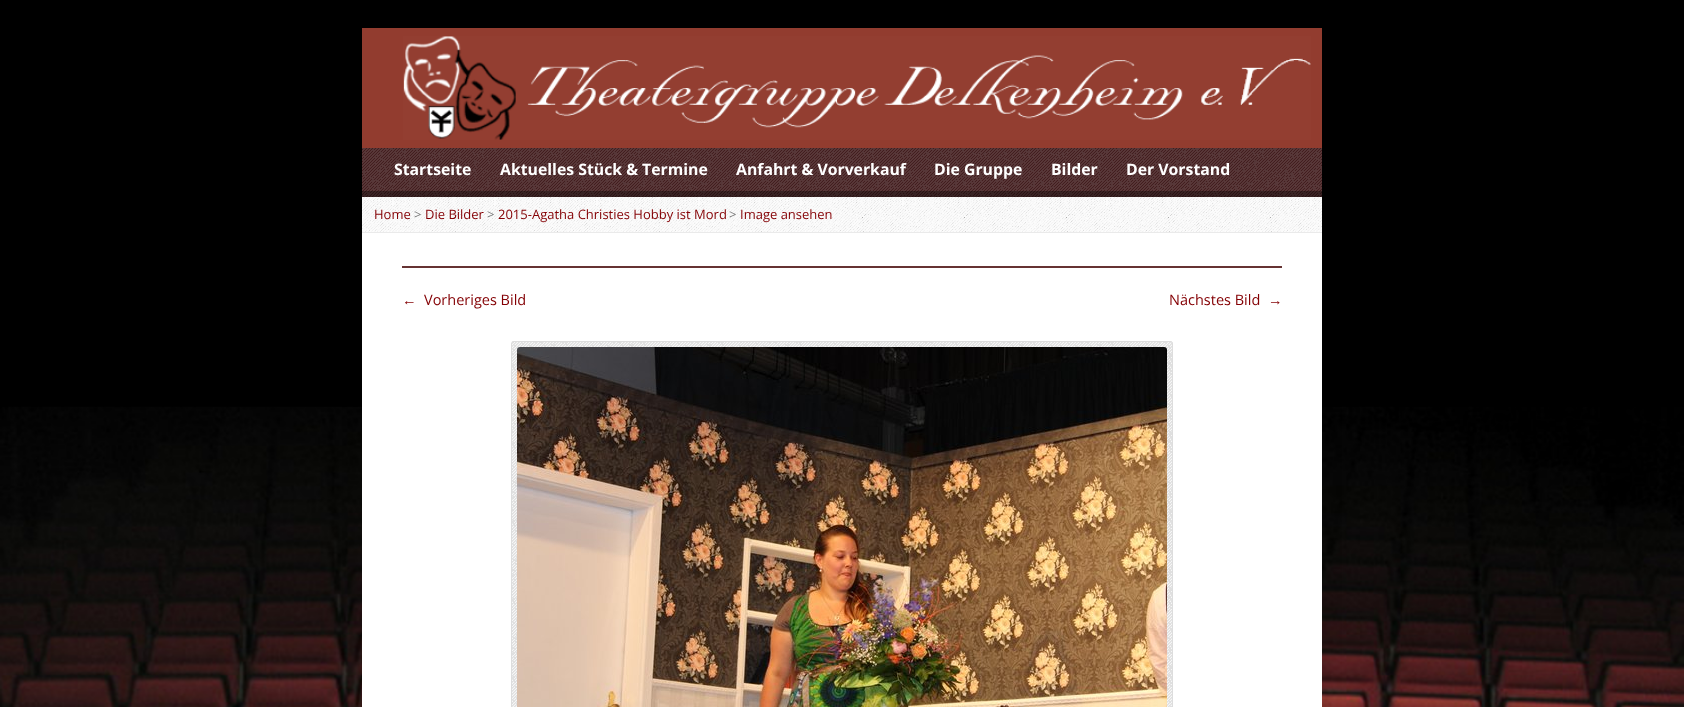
(async () => {
  const canvas = document.querySelector("canvas");
  canvas.width = 1684;
  canvas.height = 707;
  const ctx = canvas.getContext("2d");
  ctx.miterLimit = 4;
  ctx.fontKerning = "normal";
  async function loadImage(src) {
    const img = new Image();
    img.src = src;
    await img.decode();
    return img;
  }

  ctx.fillStyle = "#ffffff";
  ctx.fillRect(0, 0, 1684, 707);
  ctx.drawImage(await loadImage("img/1.png"), 0, 0, 1684, 707);
  ctx.fillStyle = "rgba(0, 0, 0, 0.12)";
  ctx.filter = "blur(10px)";
  ctx.beginPath();
  ctx.roundRect(362, 28, 960, 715, 6);
  ctx.fill();
  ctx.filter = "none";
  ctx.fillStyle = "#ffffff";
  ctx.fillRect(362, 233, 960, 474);
  ctx.fillStyle = "#923c2f";
  ctx.fillRect(362, 28, 960, 120);
  ctx.drawImage(await loadImage("img/2.png"), 403, 36, 908, 104);
  ctx.fillStyle = "#451b1c";
  ctx.fillRect(362, 148, 960, 49);
  ctx.drawImage(await loadImage("img/3.png"), 362, 148, 960, 49);
  ctx.fillStyle = "rgba(0, 0, 0, 0.35)";
  ctx.fillRect(362, 191, 960, 6);
  ctx.drawImage(await loadImage("img/4.png"), 362, 197, 960, 35);
  ctx.fillStyle = "#eaeaea";
  ctx.fillRect(362, 232, 960, 1);
  ctx.fillStyle = "#663333";
  ctx.fillRect(402, 266, 880, 2);
  ctx.drawImage(await loadImage("img/5.png"), 511, 341, 662, 366);
  ctx.beginPath();
  ctx.roundRect(511.5, 341.5, 661, 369, 2.5);
  ctx.strokeStyle = "#dddddd";
  ctx.stroke();
  ctx.drawImage(await loadImage("img/6.png"), 517, 347, 650, 360);
  ctx.font = "bold 15.8px Open Sans";
  ctx.fillStyle = "#ffffff";
  for (const [text, x, y] of [
    ["Startseite", 394, 175],
    ["Aktuelles Stück & Termine", 500, 175],
    ["Anfahrt & Vorverkauf", 736, 175],
    ["Die Gruppe", 934, 175],
    ["Bilder", 1051, 175],
    ["Der Vorstand", 1126, 175],
  ]) {
    ctx.fillText(text, x, y);
  }
  ctx.font = "13px Open Sans";
  ctx.fillStyle = "#840004";
  ctx.fillText("Home", 374, 219);
  ctx.fillStyle = "#777777";
  ctx.fillText(">", 414, 219);
  ctx.fillStyle = "#840004";
  ctx.fillText("Die Bilder", 425, 219);
  ctx.fillStyle = "#777777";
  ctx.fillText(">", 487, 219);
  ctx.fillStyle = "#840004";
  ctx.fillText("2015-Agatha Christies Hobby ist Mord", 498, 219);
  ctx.fillStyle = "#777777";
  ctx.fillText(">", 729, 219);
  ctx.fillStyle = "#840004";
  ctx.fillText("Image ansehen", 740, 219);
  ctx.font = "14.5px Liberation Sans";
  ctx.fillText("←", 402, 305);
  ctx.font = "14.5px Open Sans";
  ctx.fillText("Vorheriges Bild", 424, 305);
  ctx.fillText("Nächstes Bild", 1169, 305);
  ctx.font = "14.5px Liberation Sans";
  ctx.fillText("→", 1268, 305);
})();
